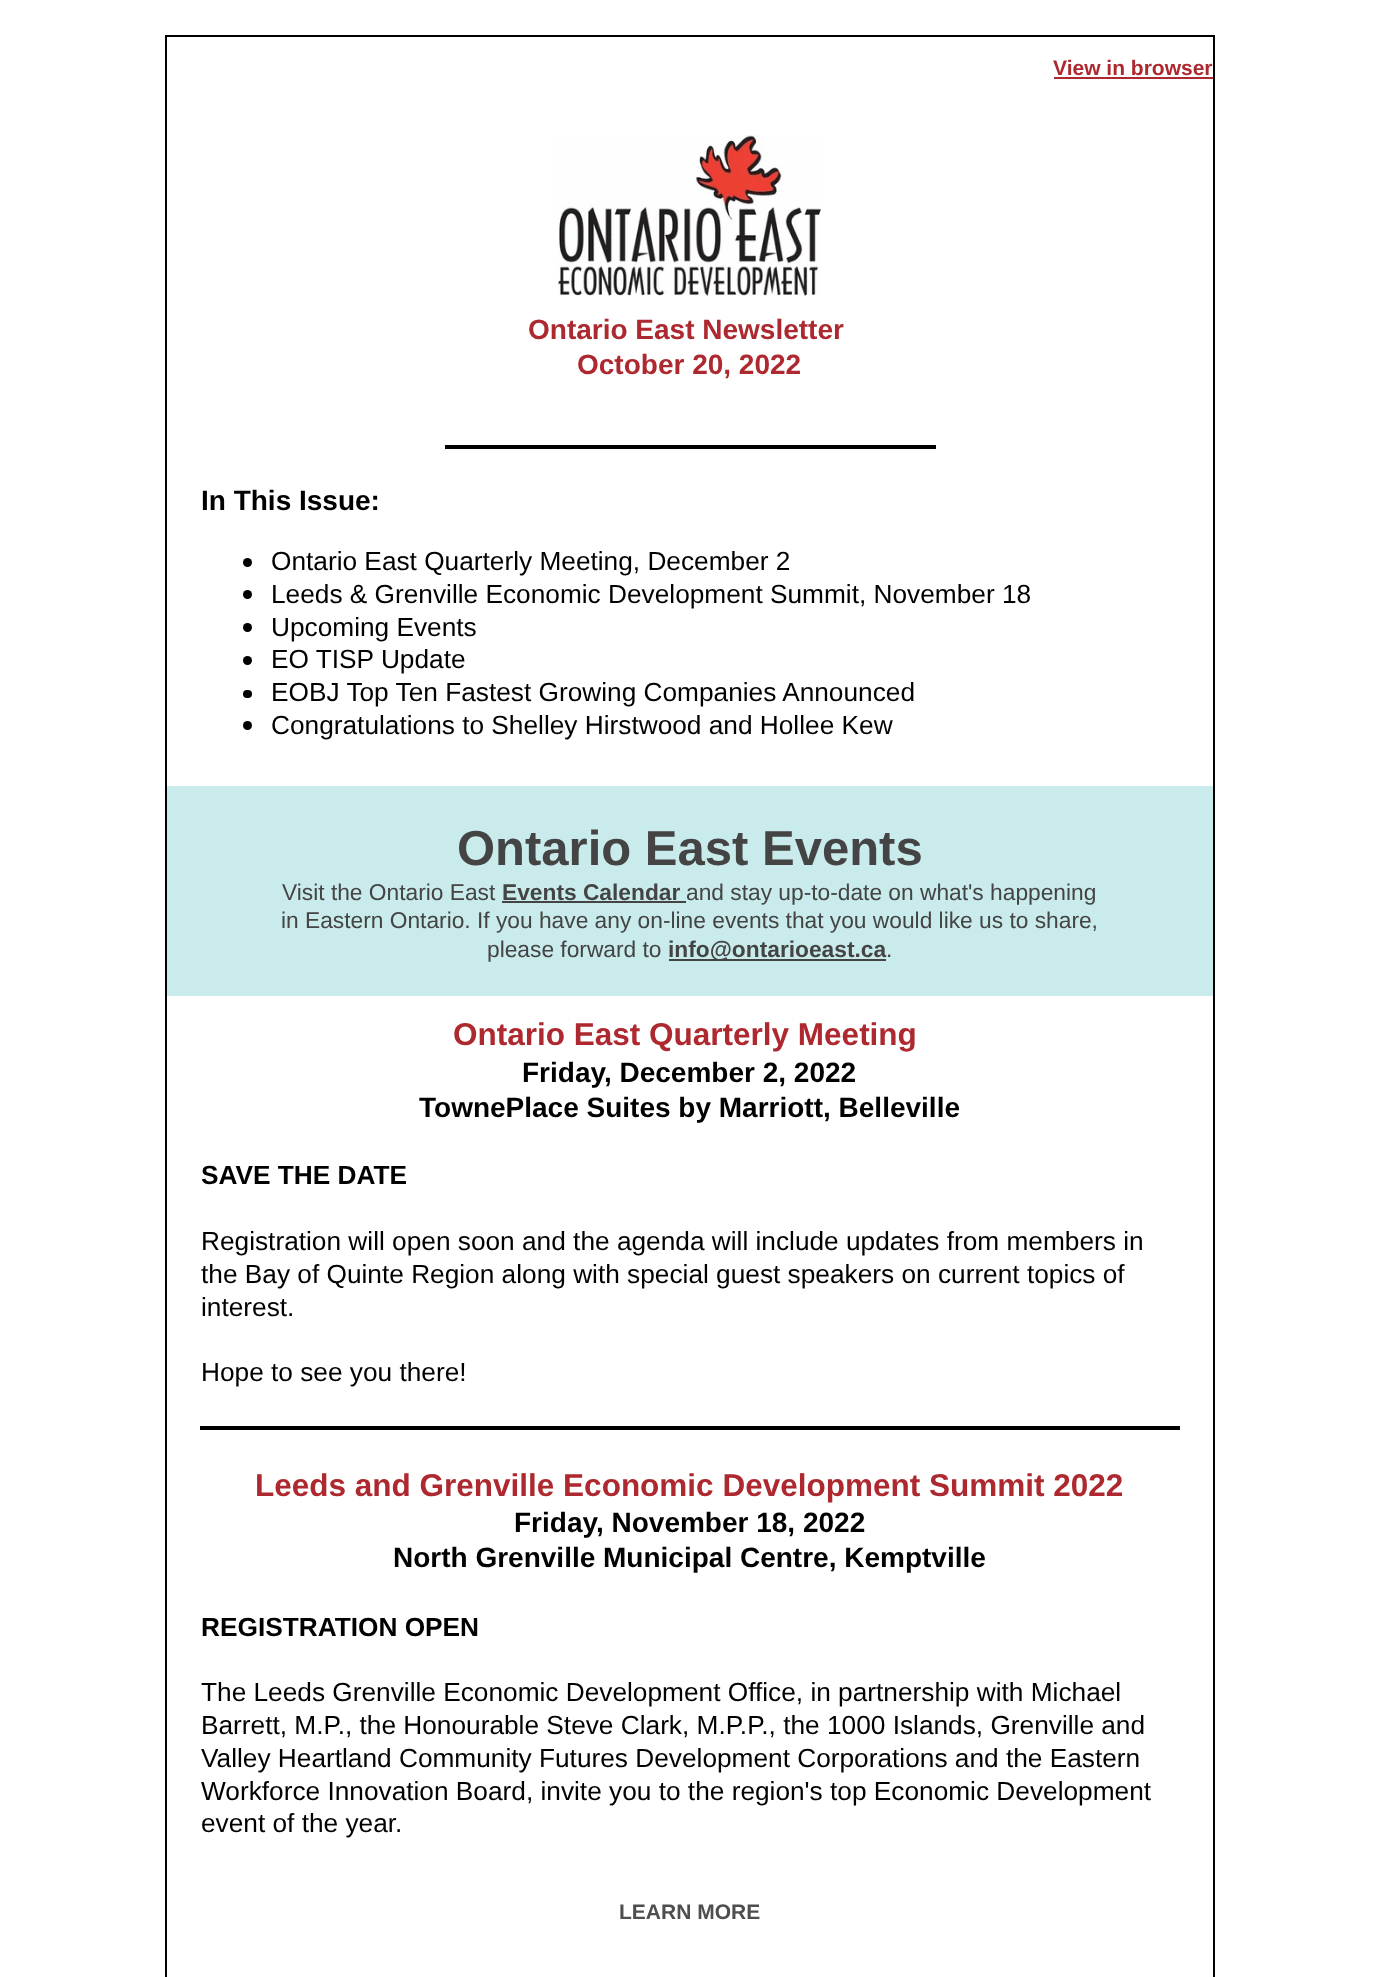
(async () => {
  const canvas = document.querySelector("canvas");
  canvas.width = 1379;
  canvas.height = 1977;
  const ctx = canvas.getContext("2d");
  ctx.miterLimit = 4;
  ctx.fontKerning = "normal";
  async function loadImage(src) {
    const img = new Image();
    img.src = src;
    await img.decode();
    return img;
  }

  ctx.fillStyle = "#ffffff";
  ctx.fillRect(0, 0, 1379, 1977);
  for (const [x, y, w, h, color] of [
    [165, 35, 1050, 2, "#000000"],
    [1213, 35, 2, 1942, "#000000"],
    [165, 35, 2, 1942, "#000000"],
    [1054, 77, 159, 2, "#ad282f"],
  ]) {
    ctx.fillStyle = color;
    ctx.fillRect(x, y, w, h);
  }
  ctx.drawImage(await loadImage("img/1.png"), 558, 135, 263, 161);
  ctx.fillStyle = "#000000";
  ctx.fillRect(445, 445, 491, 4);
  ctx.beginPath();
  ctx.arc(247.5, 562.5, 4.5, 0, Math.PI * 2);
  ctx.fill();
  ctx.beginPath();
  ctx.arc(247.5, 594.5, 4.5, 0, Math.PI * 2);
  ctx.fill();
  ctx.beginPath();
  ctx.arc(247.5, 627.5, 4.5, 0, Math.PI * 2);
  ctx.fill();
  ctx.beginPath();
  ctx.arc(247.5, 660.5, 4.5, 0, Math.PI * 2);
  ctx.fill();
  ctx.beginPath();
  ctx.roundRect(243, 690, 9, 8, 4);
  ctx.fill();
  ctx.beginPath();
  ctx.arc(247.5, 725.5, 4.5, 0, Math.PI * 2);
  ctx.fill();
  for (const [x, y, w, h, color] of [
    [167, 786, 1046, 210, "#c9ebeb"],
    [502, 901, 184, 2, "#444444"],
    [669, 959, 217, 2, "#444444"],
    [200, 1426, 980, 4, "#000000"],
  ]) {
    ctx.fillStyle = color;
    ctx.fillRect(x, y, w, h);
  }
  ctx.font = "bold 21px Liberation Sans";
  ctx.fillStyle = "#ad282f";
  ctx.fillText("View in browser", 1053, 75);
  ctx.font = "bold 28px Liberation Sans";
  ctx.fillText("Ontario East Newsletter", 528, 339);
  ctx.fillText("October 20, 2022", 577, 374);
  ctx.fillStyle = "#000000";
  ctx.fillText("In This Issue:", 201, 510);
  ctx.font = "26.25px Liberation Sans";
  for (const [text, x, y] of [
    ["Ontario East Quarterly Meeting, December 2", 271, 570],
    ["Leeds & Grenville Economic Development Summit, November 18", 271, 603],
    ["Upcoming Events", 271, 636],
    ["EO TISP Update", 271, 668],
    ["EOBJ Top Ten Fastest Growing Companies Announced", 271, 701],
    ["Congratulations to Shelley Hirstwood and Hollee Kew", 271, 734],
  ]) {
    ctx.fillText(text, x, y);
  }
  ctx.font = "bold 49px Liberation Sans";
  ctx.fillStyle = "#444444";
  ctx.fillText("Ontario East Events", 457, 865);
  ctx.font = "22.75px Liberation Sans";
  ctx.fillText("Visit the Ontario East", 282, 900);
  ctx.font = "bold 22.75px Liberation Sans";
  ctx.fillText("Events Calendar", 502, 900);
  ctx.font = "22.75px Liberation Sans";
  for (const [text, x, y] of [
    ["and stay up-to-date on what's happening", 686, 900],
    ["in Eastern Ontario. If you have any on-line events that you would like us to share,", 281, 928],
    ["please forward to", 487, 957],
  ]) {
    ctx.fillText(text, x, y);
  }
  ctx.font = "bold 22.75px Liberation Sans";
  ctx.fillText("info@ontarioeast.ca", 668, 957);
  ctx.font = "22.75px Liberation Sans";
  ctx.fillText(".", 886, 957);
  ctx.font = "bold 31.5px Liberation Sans";
  ctx.fillStyle = "#ad282f";
  ctx.fillText("Ontario East Quarterly Meeting", 453, 1045);
  ctx.font = "bold 28px Liberation Sans";
  ctx.fillStyle = "#000000";
  ctx.fillText("Friday, December 2, 2022", 522, 1082);
  ctx.fillText("TownePlace Suites by Marriott, Belleville", 419, 1117);
  ctx.font = "bold 26.25px Liberation Sans";
  ctx.fillText("SAVE THE DATE", 201, 1184);
  ctx.font = "26.25px Liberation Sans";
  for (const [text, x, y] of [
    ["Registration will open soon and the agenda will include updates from members in", 201, 1250],
    ["the Bay of Quinte Region along with special guest speakers on current topics of", 201, 1283],
    ["interest.", 201, 1316],
    ["Hope to see you there!", 201, 1381],
  ]) {
    ctx.fillText(text, x, y);
  }
  ctx.font = "bold 31.5px Liberation Sans";
  ctx.fillStyle = "#ad282f";
  ctx.fillText("Leeds and Grenville Economic Development Summit 2022", 255, 1496);
  ctx.font = "bold 28px Liberation Sans";
  ctx.fillStyle = "#000000";
  ctx.fillText("Friday, November 18, 2022", 514, 1532);
  ctx.fillText("North Grenville Municipal Centre, Kemptville", 393, 1567);
  ctx.font = "bold 26.25px Liberation Sans";
  ctx.fillText("REGISTRATION OPEN", 201, 1636);
  ctx.font = "26.25px Liberation Sans";
  for (const [text, x, y] of [
    ["The Leeds Grenville Economic Development Office, in partnership with Michael", 201, 1701],
    ["Barrett, M.P., the Honourable Steve Clark, M.P.P., the 1000 Islands, Grenville and", 201, 1734],
    ["Valley Heartland Community Futures Development Corporations and the Eastern", 201, 1767],
    ["Workforce Innovation Board, invite you to the region's top Economic Development", 201, 1800],
    ["event of the year.", 201, 1832],
  ]) {
    ctx.fillText(text, x, y);
  }
  ctx.font = "bold 21px Liberation Sans";
  ctx.fillStyle = "#4e4e4e";
  ctx.fillText("LEARN MORE", 619, 1919);
})();
